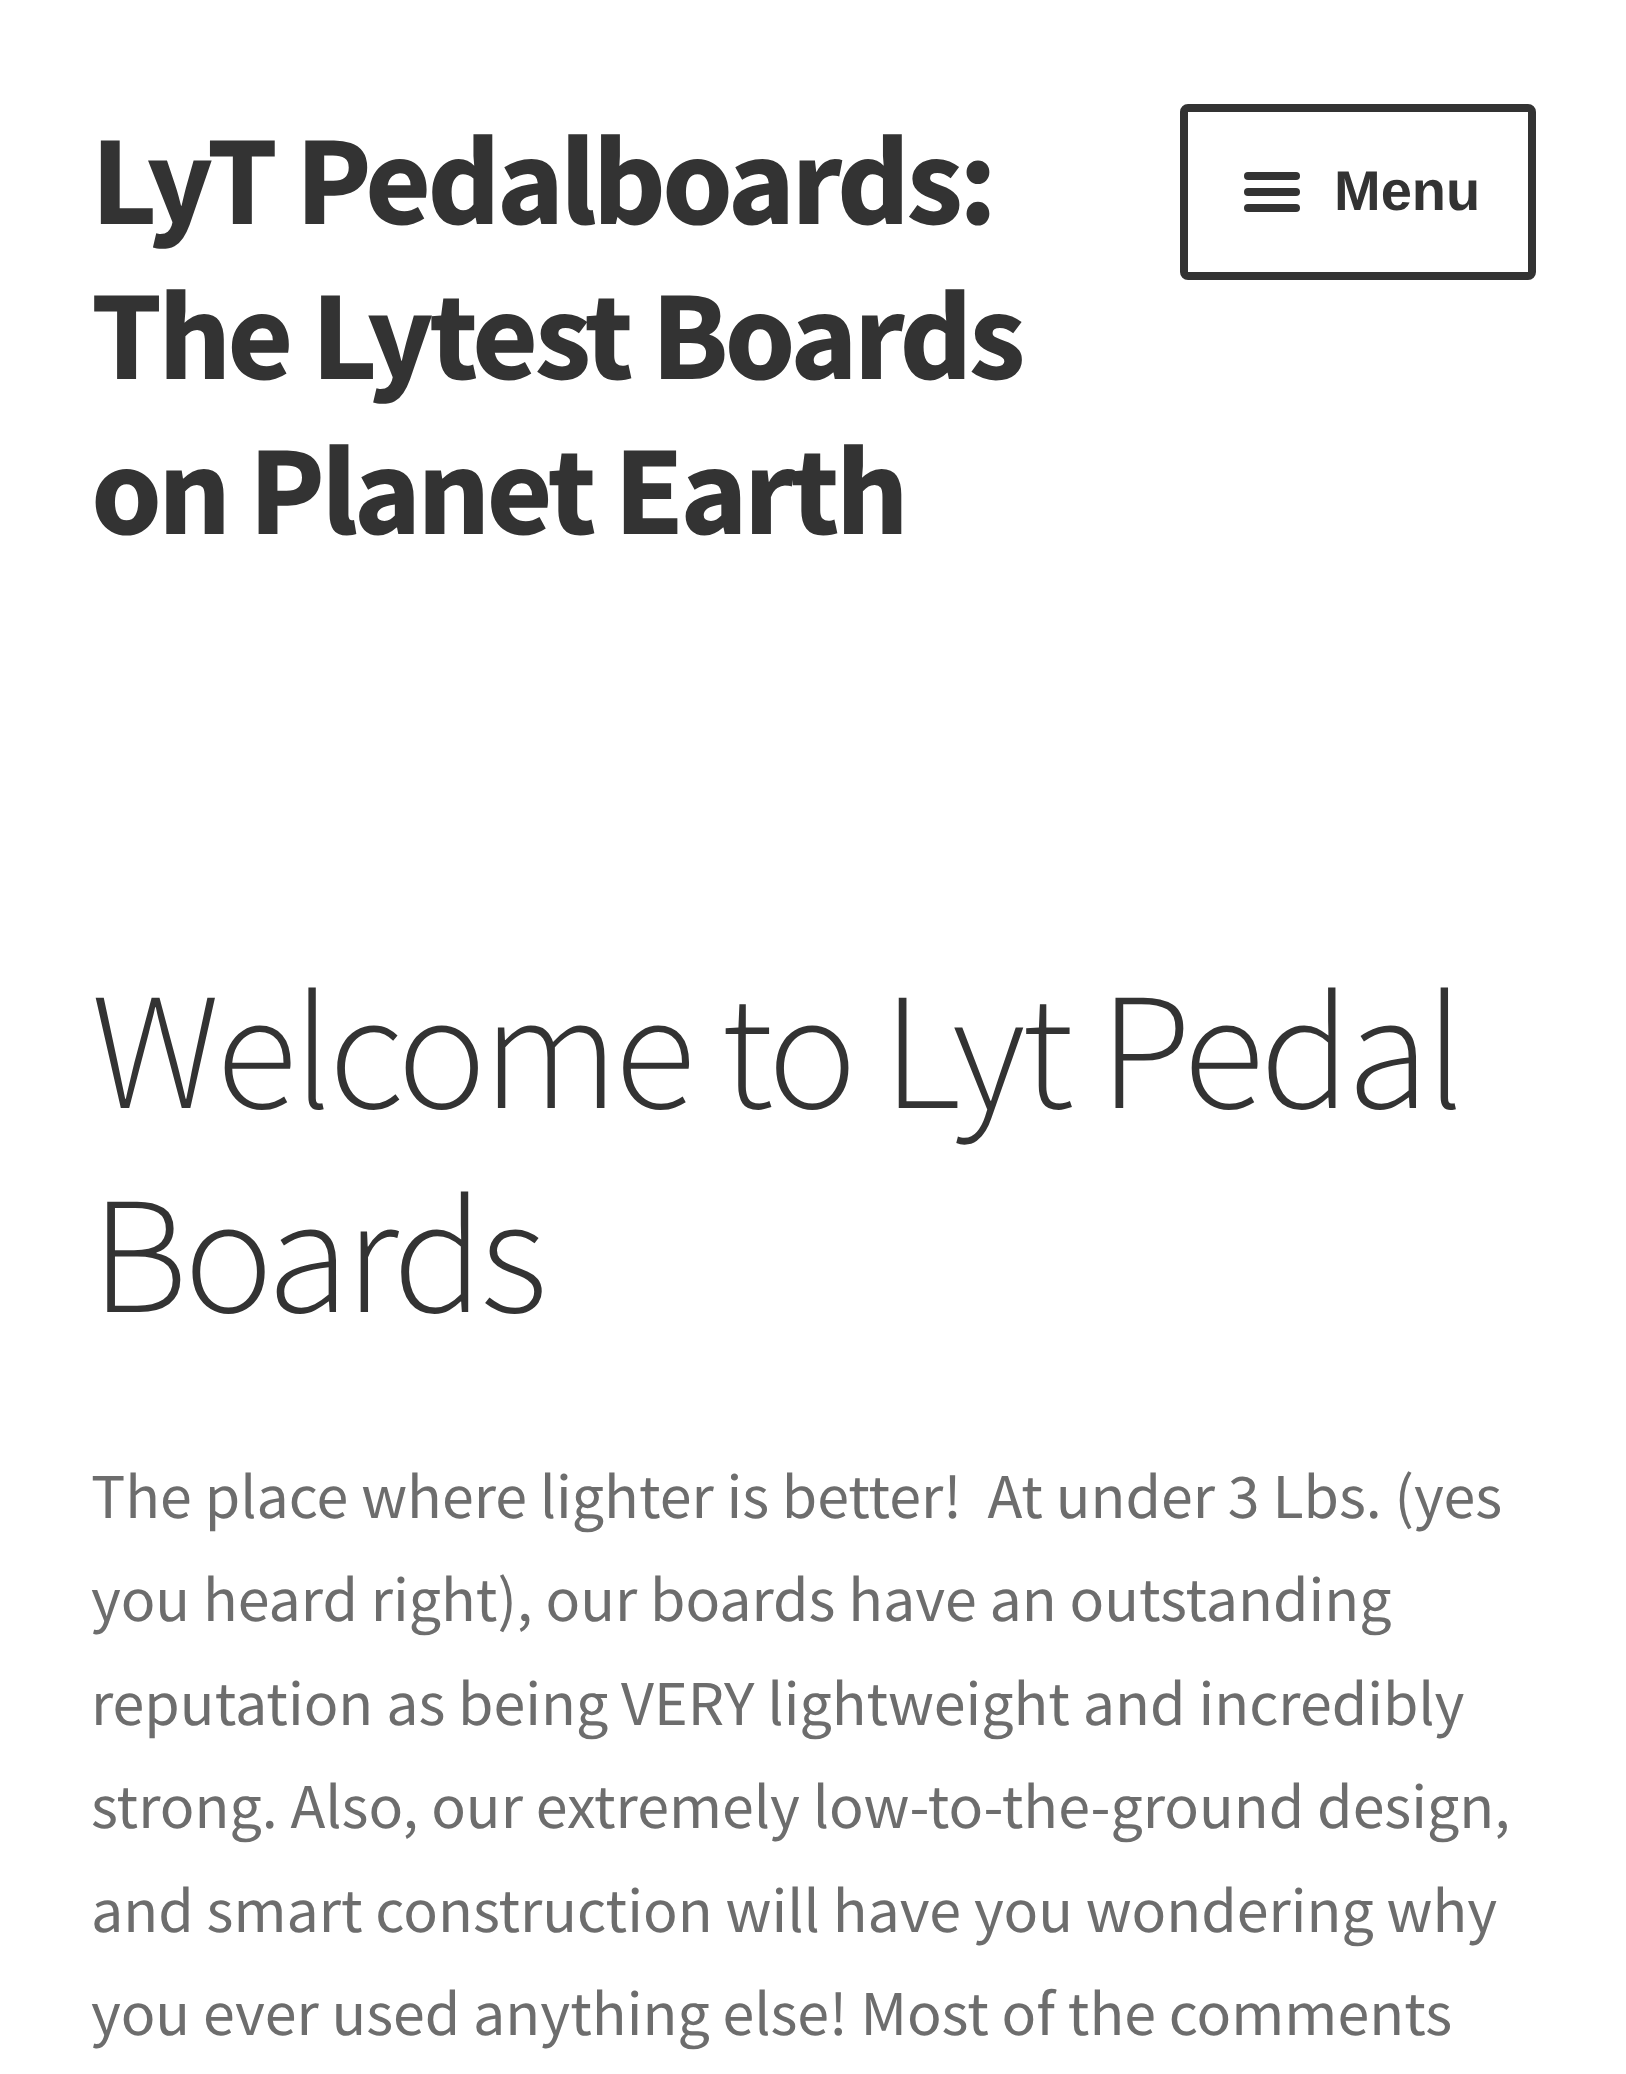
(async () => {
  const canvas = document.querySelector("canvas");
  canvas.width = 1626;
  canvas.height = 2074;
  const ctx = canvas.getContext("2d");
  ctx.miterLimit = 4;
  ctx.fontKerning = "normal";

  ctx.fillStyle = "#ffffff";
  ctx.fillRect(0, 0, 1626, 2074);
  ctx.beginPath();
  ctx.roundRect(1184, 108, 348, 168, 4);
  ctx.strokeStyle = "#333333";
  ctx.lineWidth = 8;
  ctx.stroke();
  ctx.fillStyle = "#333333";
  ctx.beginPath();
  ctx.roundRect(1244, 172, 56, 8, 4);
  ctx.fill();
  ctx.beginPath();
  ctx.roundRect(1244, 188, 56, 8, 4);
  ctx.fill();
  ctx.beginPath();
  ctx.roundRect(1244, 204, 56, 8, 4);
  ctx.fill();
  ctx.letterSpacing = "-4px";
  ctx.font = "bold 128px Source Sans Pro";
  for (const [text, x, y] of [
    ["LyT Pedalboards:", 91, 224],
    ["The Lytest Boards", 91, 379],
    ["on Planet Earth", 91, 534],
  ]) {
    ctx.fillText(text, x, y);
  }
  ctx.letterSpacing = "0px";
  ctx.font = "bold 56px Liberation Sans";
  ctx.fillText("Menu", 1334, 210);
  ctx.letterSpacing = "-4px";
  ctx.font = "300 167.5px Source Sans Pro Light";
  ctx.fillText("Welcome to Lyt Pedal", 91, 1108);
  ctx.fillText("Boards", 91, 1312);
  ctx.letterSpacing = "0px";
  ctx.font = "64px Source Sans Pro";
  ctx.fillStyle = "#6d6d6d";
  for (const [text, x, y] of [
    ["The place where lighter is better!  At under 3 Lbs. (yes", 91, 1518],
    ["you heard right), our boards have an outstanding", 91, 1621],
    ["reputation as being VERY lightweight and incredibly", 91, 1725],
    ["strong. Also, our extremely low-to-the-ground design,", 91, 1828],
    ["and smart construction will have you wondering why", 91, 1932],
    ["you ever used anything else! Most of the comments", 91, 2035],
  ]) {
    ctx.fillText(text, x, y);
  }
})();
